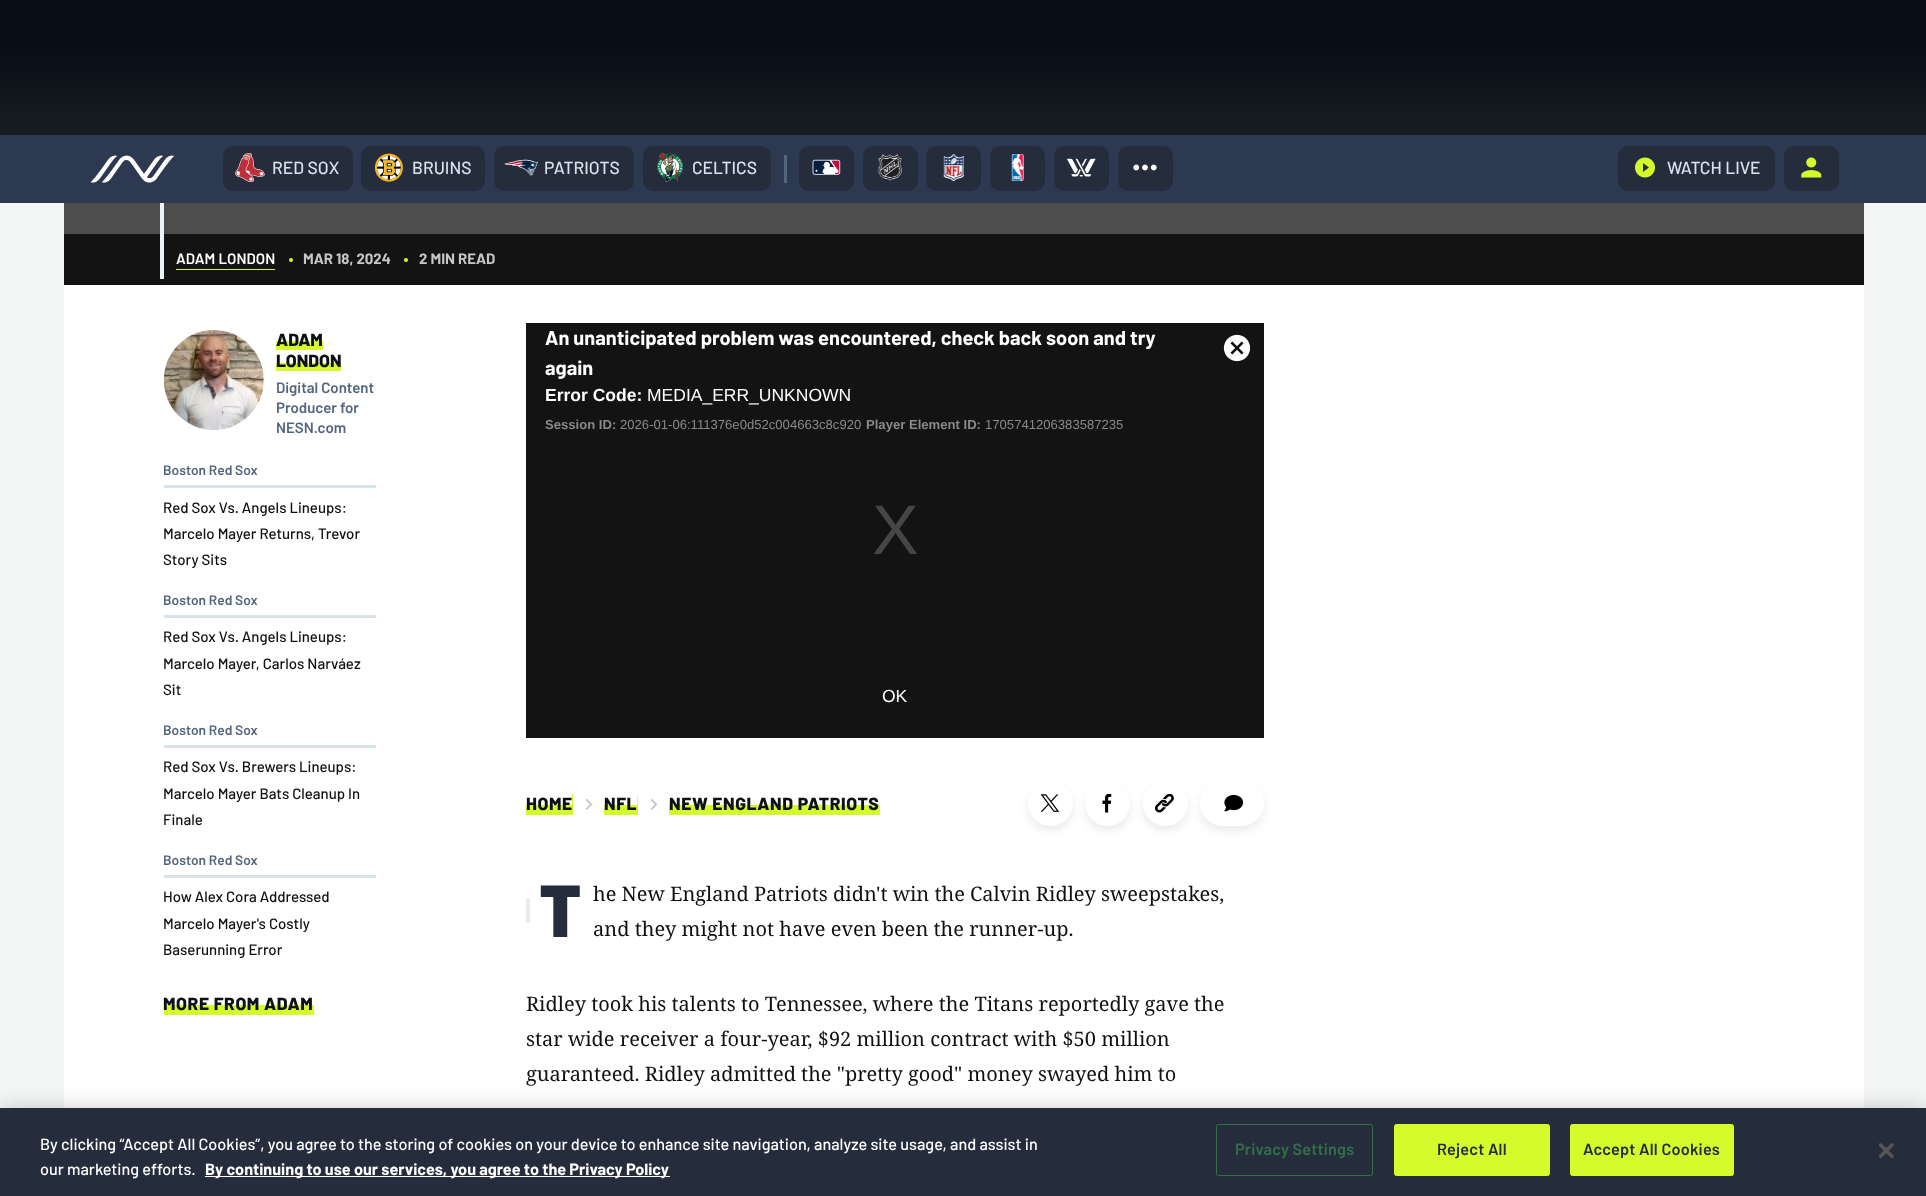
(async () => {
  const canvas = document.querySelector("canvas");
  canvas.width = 1926;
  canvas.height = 1196;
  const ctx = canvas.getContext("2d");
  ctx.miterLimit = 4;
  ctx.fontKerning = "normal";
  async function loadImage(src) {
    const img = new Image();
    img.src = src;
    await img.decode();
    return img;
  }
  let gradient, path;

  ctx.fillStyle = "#f4f5f5";
  ctx.fillRect(0, 0, 1926, 1196);
  gradient = ctx.createLinearGradient(963, 0, 963, 135);
  gradient.addColorStop(0.3, "#060d14");
  gradient.addColorStop(1, "#181d23");
  ctx.fillStyle = gradient;
  ctx.fillRect(0, 0, 1926, 135);
  ctx.fillStyle = "#2d3950";
  ctx.fillRect(0, 135, 1926, 68);
  ctx.drawImage(await loadImage("img/1.png"), 90, 155, 84, 28);
  ctx.fillStyle = "#252d3d";
  ctx.beginPath();
  ctx.roundRect(223, 146, 130, 45, 10);
  ctx.fill();
  ctx.drawImage(await loadImage("img/2.png"), 235, 153, 30, 29);
  ctx.beginPath();
  ctx.roundRect(361, 146, 124, 45, 10);
  ctx.fill();
  ctx.drawImage(await loadImage("img/3.png"), 374, 153, 29, 29);
  ctx.beginPath();
  ctx.roundRect(494, 146, 140, 45, 10);
  ctx.fill();
  ctx.drawImage(await loadImage("img/4.png"), 504, 159, 34, 17);
  ctx.beginPath();
  ctx.roundRect(643, 146, 128, 45, 10);
  ctx.fill();
  ctx.drawImage(await loadImage("img/5.png"), 657, 153, 26, 29);
  ctx.fillStyle = "#53647d";
  ctx.fillRect(784, 155, 3, 28);
  ctx.fillStyle = "#252d3d";
  ctx.beginPath();
  ctx.roundRect(799, 146, 55, 45, 10);
  ctx.fill();
  ctx.drawImage(await loadImage("img/6.png"), 812, 159, 29, 16);
  ctx.beginPath();
  ctx.roundRect(863, 146, 55, 45, 10);
  ctx.fill();
  ctx.drawImage(await loadImage("img/7.png"), 877, 154, 25, 27);
  ctx.beginPath();
  ctx.roundRect(926, 146, 55, 45, 10);
  ctx.fill();
  ctx.drawImage(await loadImage("img/8.png"), 943, 154, 21, 28);
  ctx.beginPath();
  ctx.roundRect(990, 146, 55, 45, 10);
  ctx.fill();
  ctx.drawImage(await loadImage("img/9.png"), 1011, 154, 13, 28);
  ctx.beginPath();
  ctx.roundRect(1054, 146, 55, 45, 10);
  ctx.fill();
  ctx.drawImage(await loadImage("img/10.png"), 1067, 158, 29, 19);
  ctx.beginPath();
  ctx.roundRect(1118, 146, 55, 45, 10);
  ctx.fill();
  ctx.drawImage(await loadImage("img/11.png"), 1133, 164, 24, 7);
  ctx.beginPath();
  ctx.roundRect(1618, 146, 157, 45, 10);
  ctx.fill();
  ctx.drawImage(await loadImage("img/12.png"), 1635, 157, 20, 21);
  ctx.beginPath();
  ctx.roundRect(1784, 146, 55, 45, 10);
  ctx.fill();
  ctx.drawImage(await loadImage("img/13.png"), 1801, 157, 21, 21);
  ctx.fillStyle = "#ffffff";
  ctx.fillRect(64, 285, 1800, 823);
  gradient = ctx.createLinearGradient(964, -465, 964, 285);
  gradient.addColorStop(0.1, "#ffffff");
  gradient.addColorStop(0.85, "#4d4d4d");
  ctx.fillStyle = gradient;
  ctx.fillRect(64, 203, 1800, 31);
  for (const [x, y, w, h, color] of [
    [64, 234, 1800, 51, "#131313"],
    [160, 203, 4, 76, "#ecf3f7"],
    [176, 269, 99, 1, "#d5fa2c"],
  ]) {
    ctx.fillStyle = color;
    ctx.fillRect(x, y, w, h);
  }
  ctx.beginPath();
  ctx.arc(291, 260, 2, 0, Math.PI * 2);
  ctx.fill();
  ctx.beginPath();
  ctx.arc(406, 260, 2, 0, Math.PI * 2);
  ctx.fill();
  ctx.drawImage(await loadImage("img/14.png"), 163, 330, 101, 100);
  for (const [x, y, w, h, color] of [
    [276, 341, 47, 9, "#d5fa2c"],
    [276, 363, 65, 8, "#d5fa2c"],
    [164, 485, 212, 3, "#d8e2e9"],
    [164, 615, 212, 3, "#d8e2e9"],
    [164, 745, 212, 3, "#d8e2e9"],
    [164, 875, 212, 3, "#d8e2e9"],
  ]) {
    ctx.fillStyle = color;
    ctx.fillRect(x, y, w, h);
  }
  ctx.fillStyle = "#d5fa2c";
  path = new Path2D("M164 1014V1015H314V995V1014Z");
  ctx.fill(path);
  ctx.fillRect(164, 1005, 150, 9);
  ctx.fillStyle = "#131313";
  ctx.fillRect(526, 323, 738, 415);
  ctx.drawImage(await loadImage("img/15.png"), 1223, 334, 28, 28);
  ctx.fillStyle = "#d5fa2c";
  path = new Path2D("M526 794V815H573V794H572V814H526Z");
  ctx.fill(path);
  ctx.fillRect(526, 805, 46, 9);
  ctx.drawImage(await loadImage("img/16.png"), 585, 799, 8, 11);
  path = new Path2D("M604 814V815H638V794H637.5V814Z");
  ctx.fill(path);
  ctx.fillRect(604, 805, 34, 9);
  ctx.drawImage(await loadImage("img/16.png"), 650, 799, 8, 11);
  ctx.fillRect(669, 805, 211, 10);
  ctx.fillStyle = "rgba(0, 0, 0, 0.08)";
  ctx.filter = "blur(4px)";
  ctx.beginPath();
  ctx.roundRect(1028, 786, 45, 45, 22.5);
  ctx.fill();
  ctx.filter = "none";
  ctx.fillStyle = "#ffffff";
  ctx.beginPath();
  ctx.arc(1050.5, 803.5, 22.5, 0, Math.PI * 2);
  ctx.fill();
  ctx.drawImage(await loadImage("img/17.png"), 1040, 794, 20, 18);
  ctx.fillStyle = "rgba(0, 0, 0, 0.08)";
  ctx.filter = "blur(4px)";
  ctx.beginPath();
  ctx.roundRect(1085, 786, 45, 45, 22.5);
  ctx.fill();
  ctx.filter = "none";
  ctx.fillStyle = "#ffffff";
  ctx.beginPath();
  ctx.arc(1107.5, 803.5, 22.5, 0, Math.PI * 2);
  ctx.fill();
  ctx.drawImage(await loadImage("img/18.png"), 1102, 794, 10, 19);
  ctx.fillStyle = "rgba(0, 0, 0, 0.08)";
  ctx.filter = "blur(4px)";
  ctx.beginPath();
  ctx.roundRect(1143, 786, 45, 45, 22.5);
  ctx.fill();
  ctx.filter = "none";
  ctx.fillStyle = "#ffffff";
  ctx.beginPath();
  ctx.arc(1165.5, 803.5, 22.5, 0, Math.PI * 2);
  ctx.fill();
  ctx.drawImage(await loadImage("img/19.png"), 1155, 794, 19, 19);
  ctx.fillStyle = "rgba(0, 0, 0, 0.08)";
  ctx.filter = "blur(4px)";
  ctx.beginPath();
  ctx.roundRect(1200, 786, 64, 45, 22.5);
  ctx.fill();
  ctx.filter = "none";
  ctx.fillStyle = "#ffffff";
  ctx.beginPath();
  ctx.roundRect(1200, 781, 64, 45, 22.5);
  ctx.fill();
  ctx.drawImage(await loadImage("img/20.png"), 1224, 794, 20, 18);
  ctx.fillStyle = "#eaecec";
  ctx.fillRect(526, 898, 4, 25);
  ctx.fillStyle = "rgba(0, 0, 0, 0.2)";
  ctx.filter = "blur(11px)";
  ctx.beginPath();
  ctx.rect(0, 1108, 1926, 88);
  ctx.fill();
  ctx.filter = "none";
  ctx.fillStyle = "#252d3d";
  ctx.fillRect(0, 1108, 1926, 88);
  ctx.fillStyle = "#ffffff";
  ctx.fillRect(205, 1176, 465, 1);
  ctx.beginPath();
  ctx.roundRect(1216.5, 1124.5, 156, 51, 2);
  ctx.strokeStyle = "#346e4a";
  ctx.stroke();
  ctx.fillStyle = "#d5fb2d";
  ctx.beginPath();
  ctx.roundRect(1394.5, 1124.5, 155, 51, 2);
  ctx.fill();
  ctx.strokeStyle = "#d5fb2d";
  ctx.stroke();
  ctx.beginPath();
  ctx.roundRect(1570.5, 1124.5, 163, 51, 2);
  ctx.fill();
  ctx.stroke();
  ctx.drawImage(await loadImage("img/21.png"), 1879, 1143, 15, 15);
  ctx.font = "500 17.5px Barlow";
  ctx.fillStyle = "#d8e2e9";
  for (const [text, x, y] of [
    ["RED SOX", 272, 174],
    ["BRUINS", 412, 174],
    ["PATRIOTS", 544, 174],
    ["CELTICS", 692, 174],
    ["WATCH LIVE", 1667, 174],
  ]) {
    ctx.fillText(text, x, y);
  }
  ctx.letterSpacing = "0.1px";
  ctx.font = "600 15px Barlow";
  ctx.fillStyle = "#ffffff";
  ctx.fillText("ADAM LONDON", 176, 264);
  ctx.letterSpacing = "0px";
  ctx.font = "bold 15px Barlow";
  ctx.fillStyle = "#c5c7c8";
  ctx.fillText("MAR 18, 2024", 303, 264);
  ctx.fillText("2 MIN READ", 419, 264);
  ctx.font = "800 17.5px Barlow";
  ctx.fillStyle = "#0e1012";
  ctx.fillText("ADAM", 276, 346);
  ctx.fillText("LONDON", 276, 367);
  ctx.font = "600 15px Barlow";
  ctx.fillStyle = "#53647d";
  for (const [text, x, y] of [
    ["Digital Content", 276, 393],
    ["Producer for", 276, 413],
    ["NESN.com", 276, 433],
  ]) {
    ctx.fillText(text, x, y);
  }
  ctx.font = "600 13.75px Barlow";
  ctx.fillText("Boston Red Sox", 163, 475);
  ctx.font = "500 15px Barlow";
  ctx.fillStyle = "#0e1012";
  for (const [text, x, y] of [
    ["Red Sox Vs. Angels Lineups:", 163, 513],
    ["Marcelo Mayer Returns, Trevor", 163, 539],
    ["Story Sits", 163, 565],
  ]) {
    ctx.fillText(text, x, y);
  }
  ctx.font = "600 13.75px Barlow";
  ctx.fillStyle = "#53647d";
  ctx.fillText("Boston Red Sox", 163, 605);
  ctx.font = "500 15px Barlow";
  ctx.fillStyle = "#0e1012";
  for (const [text, x, y] of [
    ["Red Sox Vs. Angels Lineups:", 163, 642],
    ["Marcelo Mayer, Carlos Narváez", 163, 669],
    ["Sit", 163, 695],
  ]) {
    ctx.fillText(text, x, y);
  }
  ctx.font = "600 13.75px Barlow";
  ctx.fillStyle = "#53647d";
  ctx.fillText("Boston Red Sox", 163, 735);
  ctx.font = "500 15px Barlow";
  ctx.fillStyle = "#0e1012";
  for (const [text, x, y] of [
    ["Red Sox Vs. Brewers Lineups:", 163, 772],
    ["Marcelo Mayer Bats Cleanup In", 163, 799],
    ["Finale", 163, 825],
  ]) {
    ctx.fillText(text, x, y);
  }
  ctx.font = "600 13.75px Barlow";
  ctx.fillStyle = "#53647d";
  ctx.fillText("Boston Red Sox", 163, 865);
  ctx.font = "500 15px Barlow";
  ctx.fillStyle = "#0e1012";
  for (const [text, x, y] of [
    ["How Alex Cora Addressed", 163, 902],
    ["Marcelo Mayer's Costly", 163, 929],
    ["Baserunning Error", 163, 955],
  ]) {
    ctx.fillText(text, x, y);
  }
  ctx.letterSpacing = "0.6px";
  ctx.font = "800 17.5px Barlow";
  ctx.fillText("MORE FROM ADAM", 163, 1010);
  ctx.letterSpacing = "0px";
  ctx.font = "bold 20px Barlow";
  ctx.fillStyle = "#ffffff";
  ctx.fillText("An unanticipated problem was encountered, check back soon and try", 545, 345);
  ctx.fillText("again", 545, 375);
  ctx.font = "bold 17.5px Liberation Sans";
  ctx.fillText("Error Code:", 545, 401);
  ctx.font = "17.5px Liberation Sans";
  ctx.fillText("MEDIA_ERR_UNKNOWN", 647, 401);
  ctx.font = "bold 13.1px Liberation Sans";
  ctx.fillStyle = "#898989";
  ctx.fillText("Session ID:", 545, 429);
  ctx.font = "13.1px Liberation Sans";
  ctx.fillText("2026-01-06:111376e0d52c004663c8c920", 620, 429);
  ctx.font = "bold 13.1px Liberation Sans";
  ctx.fillText("Player Element ID:", 866, 429);
  ctx.font = "13.1px Liberation Sans";
  ctx.fillText("1705741206383587235", 985, 429);
  ctx.font = "17.5px Liberation Sans";
  ctx.fillStyle = "#ffffff";
  ctx.fillText("OK", 882, 702);
  ctx.font = "70px Liberation Sans";
  ctx.fillStyle = "#464646";
  ctx.fillText("X", 872, 554);
  ctx.letterSpacing = "0.6px";
  ctx.font = "800 17.5px Barlow";
  ctx.fillStyle = "#0e1012";
  for (const [text, x, y] of [
    ["HOME", 526, 810],
    ["NFL", 604, 810],
    ["NEW ENGLAND PATRIOTS", 669, 810],
  ]) {
    ctx.fillText(text, x, y);
  }
  ctx.letterSpacing = "0px";
  ctx.font = "900 72px Noto Sans";
  ctx.fillStyle = "#252d3d";
  ctx.fillText("T", 539, 937);
  ctx.font = "20px Noto Serif";
  ctx.fillStyle = "#0e1012";
  for (const [text, x, y] of [
    ["he New England Patriots didn't win the Calvin Ridley sweepstakes,", 593, 901],
    ["and they might not have even been the runner-up.", 593, 936],
    ["Ridley took his talents to Tennessee, where the Titans reportedly gave the", 526, 1011],
    ["star wide receiver a four-year, $92 million contract with $50 million", 526, 1046],
    ["guaranteed. Ridley admitted the \"pretty good\" money swayed him to", 526, 1081],
  ]) {
    ctx.fillText(text, x, y);
  }
  ctx.font = "500 16.25px Barlow";
  ctx.fillStyle = "#ffffff";
  ctx.fillText("By clicking “Accept All Cookies”, you agree to the storing of cookies on your device to enhance site navigation, analyze site usage, and assist in", 40, 1150);
  ctx.fillText("our marketing efforts.", 40, 1175);
  ctx.font = "bold 16.25px Barlow";
  ctx.fillText("By continuing to use our services, you agree to the Privacy Policy", 205, 1175);
  ctx.letterSpacing = "0.2px";
  ctx.font = "600 16.25px Barlow";
  ctx.fillStyle = "#346e4a";
  ctx.fillText("Privacy Settings", 1235, 1155);
  ctx.fillStyle = "#252d3d";
  ctx.fillText("Reject All", 1437, 1155);
  ctx.fillText("Accept All Cookies", 1583, 1155);
})();
